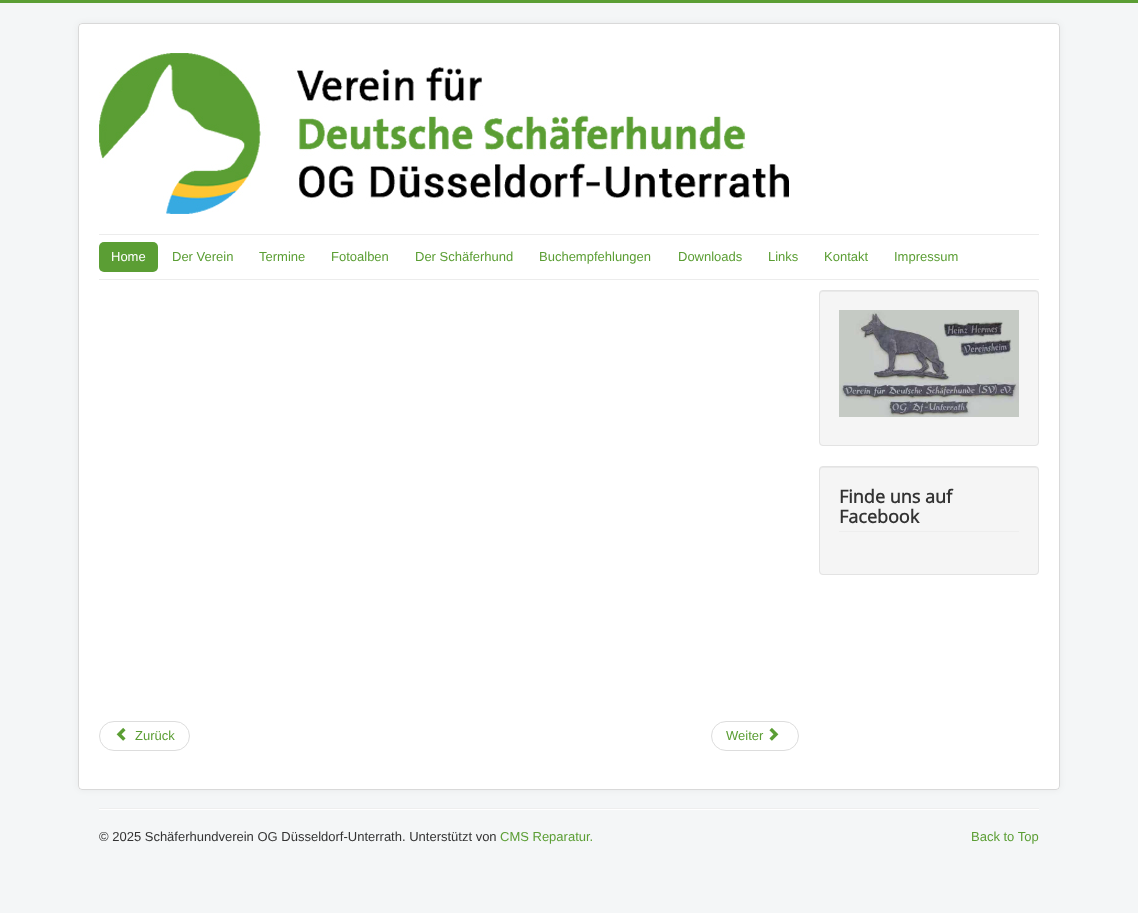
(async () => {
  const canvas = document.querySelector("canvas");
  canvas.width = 1138;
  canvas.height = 913;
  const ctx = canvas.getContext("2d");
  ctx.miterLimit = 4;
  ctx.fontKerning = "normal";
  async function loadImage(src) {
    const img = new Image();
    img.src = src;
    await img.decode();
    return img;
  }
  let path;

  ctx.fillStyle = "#f4f6f7";
  ctx.fillRect(0, 0, 1138, 913);
  ctx.fillStyle = "#5b9e34";
  ctx.fillRect(0, 0, 1138, 3);
  ctx.fillStyle = "rgba(0, 0, 0, 0.05)";
  ctx.filter = "blur(3px)";
  ctx.beginPath();
  ctx.roundRect(78, 23, 982, 767, 4);
  ctx.fill();
  ctx.filter = "none";
  ctx.fillStyle = "#ffffff";
  ctx.beginPath();
  ctx.roundRect(78, 23, 982, 767, 4);
  ctx.fill();
  ctx.beginPath();
  ctx.roundRect(78.5, 23.5, 981, 766, 3.5);
  ctx.strokeStyle = "rgba(0, 0, 0, 0.15)";
  ctx.stroke();
  ctx.drawImage(await loadImage("img/1.png"), 99, 53, 690, 161);
  ctx.fillStyle = "#ececec";
  ctx.fillRect(99, 234, 940, 1);
  ctx.fillRect(99, 279, 940, 1);
  ctx.fillStyle = "#5b9e34";
  ctx.beginPath();
  ctx.roundRect(99, 242, 59, 30, 5);
  ctx.fill();
  ctx.fillStyle = "#f5f5f5";
  ctx.beginPath();
  ctx.roundRect(819, 290, 220, 156, 4);
  ctx.fill();
  ctx.fillStyle = "#e9e9e9";
  path = new Path2D("M823 292H1035C1037 292 1038 293 1038 295V294C1038 292 1037 291 1035 291H823C821 291 820 292 820 294V295C820 293 821 292 823 292Z");
  ctx.fill(path);
  ctx.beginPath();
  ctx.roundRect(819.5, 290.5, 219, 155, 3.5);
  ctx.strokeStyle = "#e3e3e3";
  ctx.stroke();
  ctx.drawImage(await loadImage("img/2.png"), 839, 310, 180, 107);
  ctx.fillStyle = "#f5f5f5";
  ctx.beginPath();
  ctx.roundRect(819, 466, 220, 109, 4);
  ctx.fill();
  ctx.fillStyle = "#e9e9e9";
  path = new Path2D("M823 468H1035C1037 468 1038 469 1038 471V470C1038 468 1037 467 1035 467H823C821 467 820 468 820 470V471C820 469 821 468 823 468Z");
  ctx.fill(path);
  ctx.beginPath();
  ctx.roundRect(819.5, 466.5, 219, 108, 3.5);
  ctx.stroke();
  ctx.fillStyle = "#eeeeee";
  ctx.fillRect(839, 531, 180, 1);
  ctx.beginPath();
  ctx.roundRect(99.5, 721.5, 90, 29, 14.5);
  ctx.strokeStyle = "#dddddd";
  ctx.stroke();
  ctx.drawImage(await loadImage("img/3.png"), 116, 727, 10, 14);
  ctx.beginPath();
  ctx.roundRect(711.5, 721.5, 87, 29, 14.5);
  ctx.stroke();
  ctx.drawImage(await loadImage("img/4.png"), 769, 727, 10, 14);
  ctx.fillRect(99, 808, 940, 1);
  ctx.fillStyle = "#ffffff";
  ctx.fillRect(99, 809, 940, 1);
  ctx.font = "13px Liberation Sans";
  ctx.fillText("Home", 111, 261);
  ctx.fillStyle = "#5b9e34";
  for (const [text, x, y] of [
    ["Der Verein", 172, 261],
    ["Termine", 259, 261],
    ["Fotoalben", 331, 261],
    ["Der Schäferhund", 415, 261],
    ["Buchempfehlungen", 539, 261],
    ["Downloads", 678, 261],
    ["Links", 768, 261],
    ["Kontakt", 824, 261],
    ["Impressum", 894, 261],
  ]) {
    ctx.fillText(text, x, y);
  }
  ctx.font = "bold 18px Open Sans";
  ctx.fillStyle = "#333333";
  ctx.fillText("Finde uns auf", 839, 503);
  ctx.fillText("Facebook", 839, 523);
  ctx.font = "13px Liberation Sans";
  ctx.fillStyle = "#5b9e34";
  ctx.fillText("Zurück", 135, 740);
  ctx.fillText("Weiter", 726, 740);
  ctx.fillStyle = "#333333";
  ctx.fillText("© 2025 Schäferhundverein OG Düsseldorf-Unterrath. Unterstützt von", 99, 841);
  ctx.fillStyle = "#5b9e34";
  ctx.fillText("CMS Reparatur.", 500, 841);
  ctx.fillText("Back to Top", 971, 841);
})();
